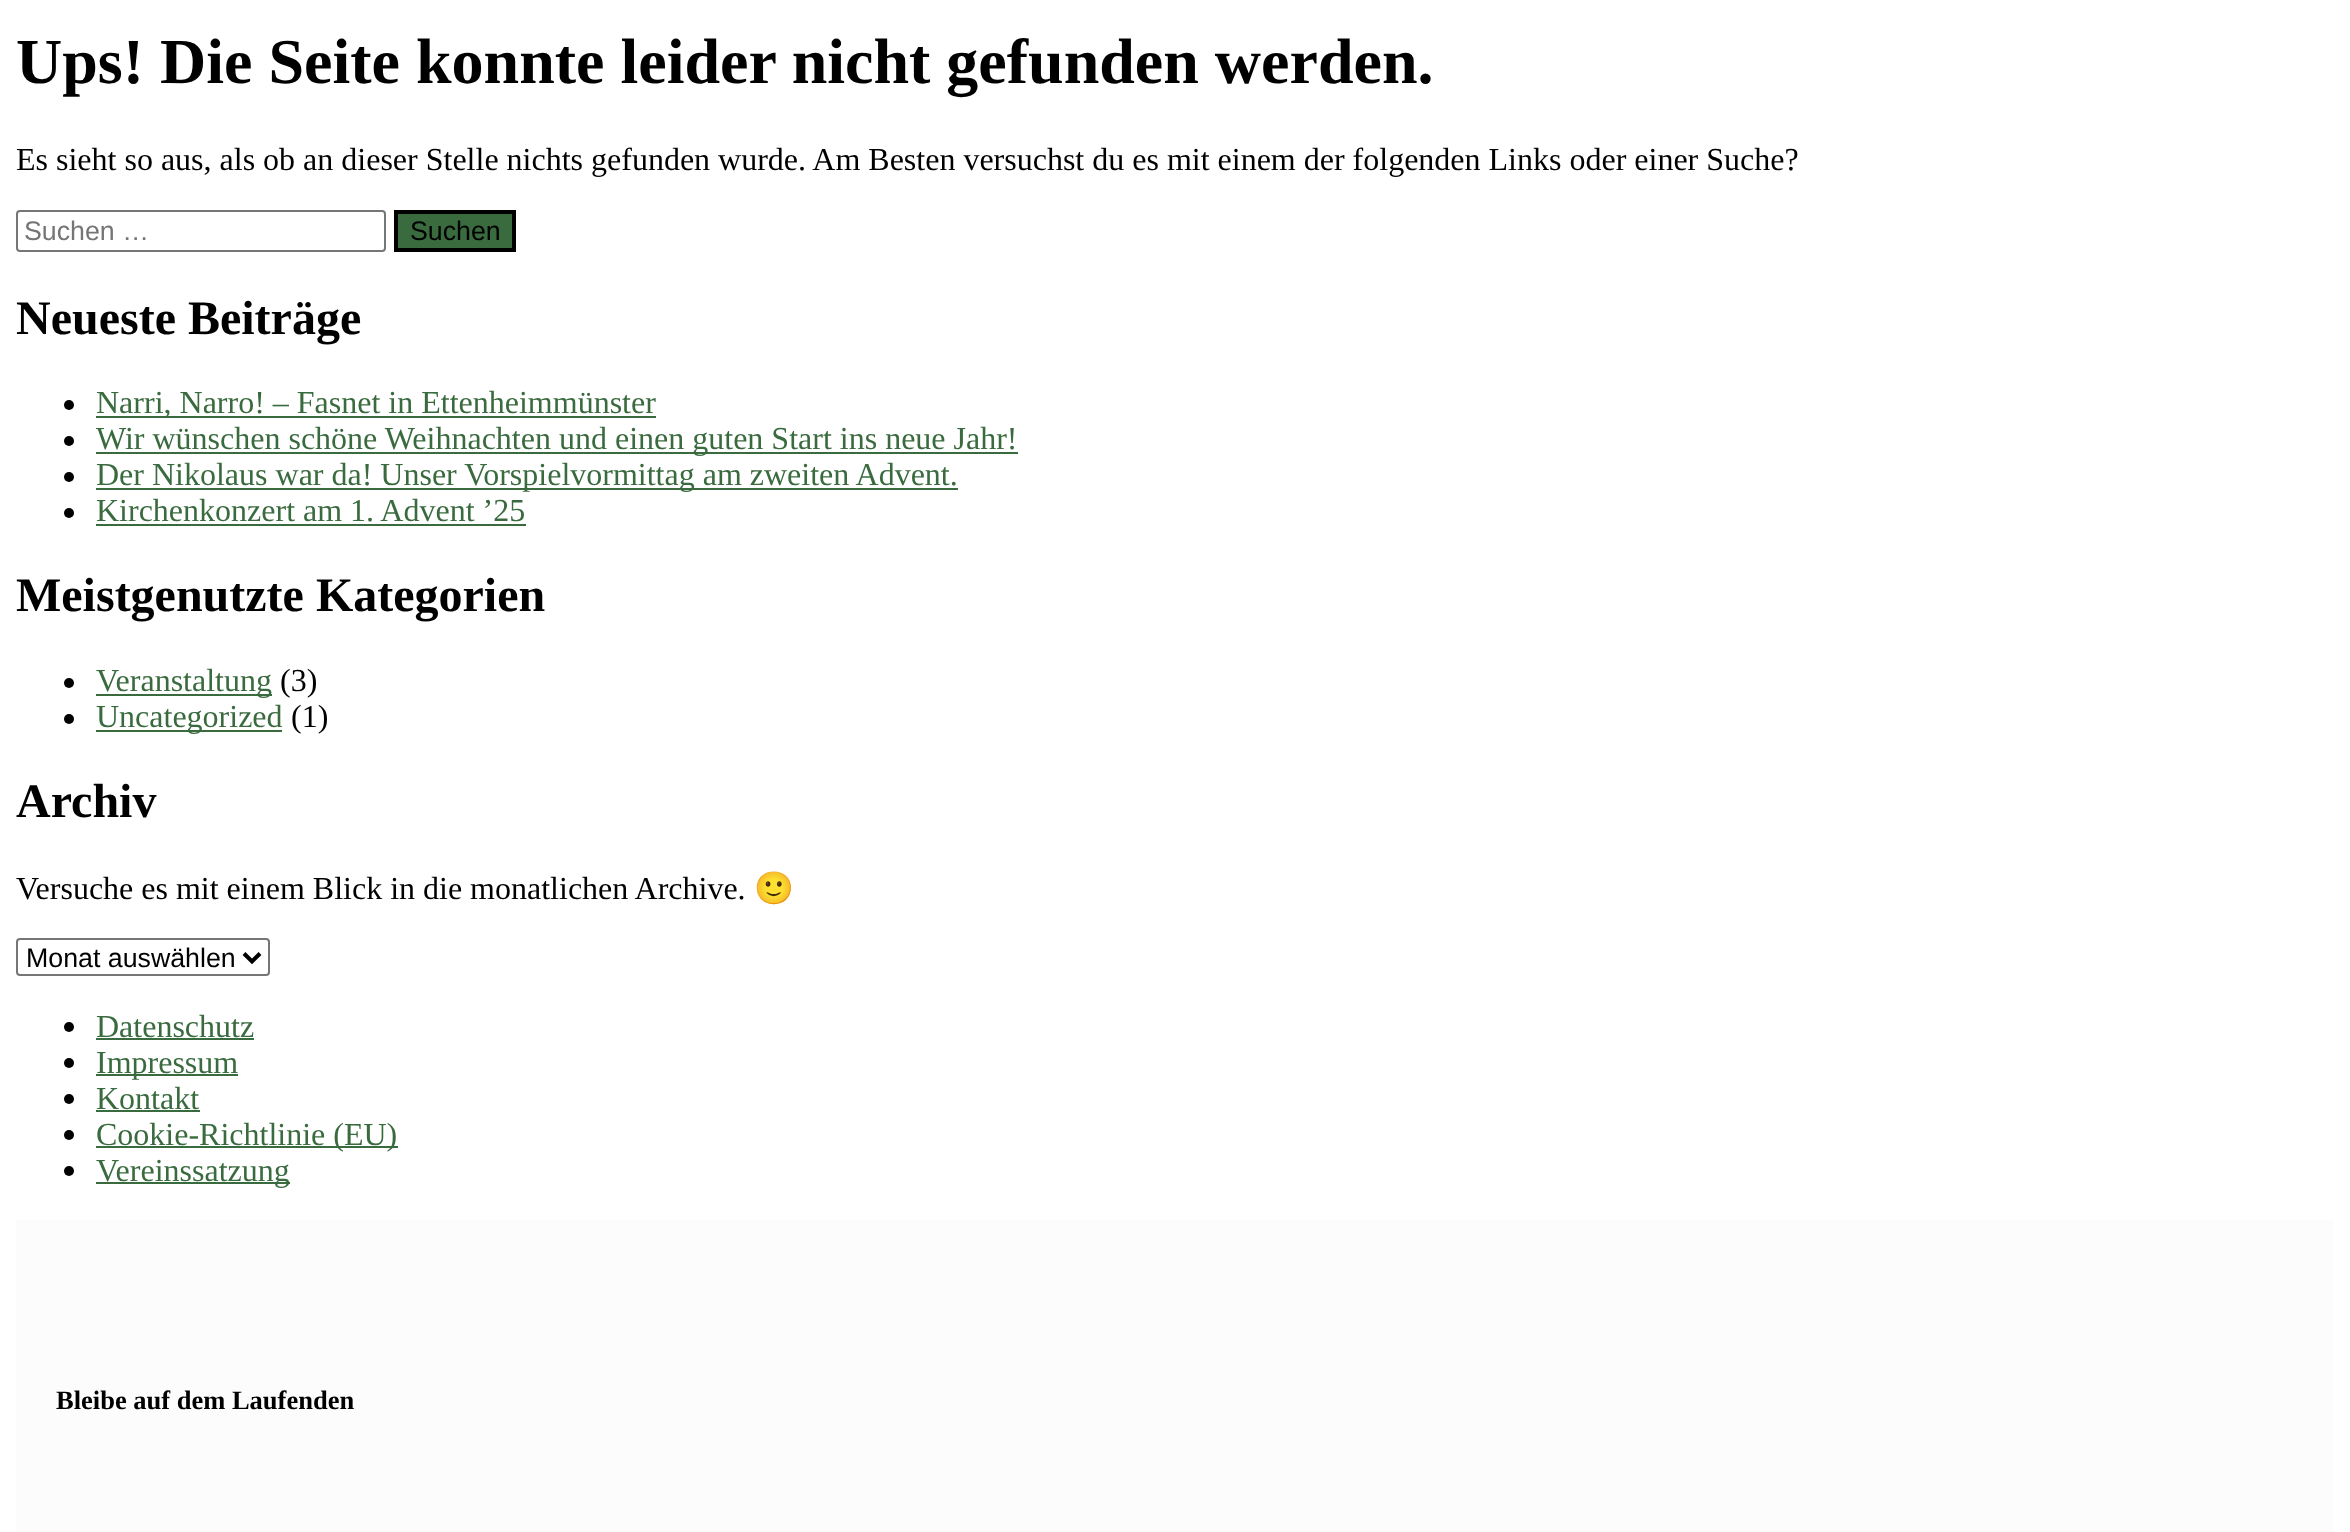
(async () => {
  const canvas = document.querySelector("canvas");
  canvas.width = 2350;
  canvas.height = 1532;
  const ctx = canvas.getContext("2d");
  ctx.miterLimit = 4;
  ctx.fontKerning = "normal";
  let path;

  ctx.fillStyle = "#ffffff";
  ctx.fillRect(0, 0, 2350, 1532);
  ctx.beginPath();
  ctx.roundRect(17, 211, 368, 40, 3);
  ctx.strokeStyle = "#767676";
  ctx.lineWidth = 2;
  ctx.stroke();
  ctx.fillStyle = "#3a6b3f";
  ctx.beginPath();
  ctx.rect(396, 212, 118, 38);
  ctx.fill();
  ctx.strokeStyle = "#000000";
  ctx.lineWidth = 4;
  ctx.stroke();
  ctx.fillStyle = "#000000";
  ctx.beginPath();
  ctx.arc(69, 405, 5, 0, Math.PI * 2);
  ctx.fill();
  ctx.fillStyle = "#3a6b3f";
  ctx.fillRect(96, 416, 560, 2);
  ctx.fillStyle = "#000000";
  ctx.beginPath();
  ctx.arc(69, 441, 5, 0, Math.PI * 2);
  ctx.fill();
  ctx.fillStyle = "#3a6b3f";
  ctx.fillRect(96, 452, 922, 2);
  ctx.fillStyle = "#000000";
  ctx.beginPath();
  ctx.arc(69, 477, 5, 0, Math.PI * 2);
  ctx.fill();
  ctx.fillStyle = "#3a6b3f";
  ctx.fillRect(96, 488, 862, 2);
  ctx.fillStyle = "#000000";
  ctx.beginPath();
  ctx.arc(69, 513, 5, 0, Math.PI * 2);
  ctx.fill();
  ctx.fillStyle = "#3a6b3f";
  ctx.fillRect(96, 524, 430, 2);
  ctx.fillStyle = "#000000";
  ctx.beginPath();
  ctx.arc(69, 683, 5, 0, Math.PI * 2);
  ctx.fill();
  ctx.fillStyle = "#3a6b3f";
  ctx.fillRect(96, 694, 176, 2);
  ctx.fillStyle = "#000000";
  ctx.beginPath();
  ctx.arc(69, 719, 5, 0, Math.PI * 2);
  ctx.fill();
  ctx.fillStyle = "#3a6b3f";
  ctx.fillRect(96, 730, 186, 2);
  ctx.beginPath();
  ctx.roundRect(17, 939, 252, 36, 3);
  ctx.strokeStyle = "#767676";
  ctx.lineWidth = 2;
  ctx.stroke();
  path = new Path2D("M244 953.5L252 961.5L260 953.5");
  ctx.strokeStyle = "#000000";
  ctx.lineWidth = 4;
  ctx.stroke(path);
  ctx.fillStyle = "#000000";
  ctx.beginPath();
  ctx.arc(69, 1027, 5, 0, Math.PI * 2);
  ctx.fill();
  ctx.fillStyle = "#3a6b3f";
  ctx.fillRect(96, 1038, 158, 2);
  ctx.fillStyle = "#000000";
  ctx.beginPath();
  ctx.arc(69, 1063, 5, 0, Math.PI * 2);
  ctx.fill();
  ctx.fillStyle = "#3a6b3f";
  ctx.fillRect(96, 1074, 142, 2);
  ctx.fillStyle = "#000000";
  ctx.beginPath();
  ctx.arc(69, 1099, 5, 0, Math.PI * 2);
  ctx.fill();
  ctx.fillStyle = "#3a6b3f";
  ctx.fillRect(96, 1110, 104, 2);
  ctx.fillStyle = "#000000";
  ctx.beginPath();
  ctx.arc(69, 1135, 5, 0, Math.PI * 2);
  ctx.fill();
  ctx.fillStyle = "#3a6b3f";
  ctx.fillRect(96, 1146, 302, 2);
  ctx.fillStyle = "#000000";
  ctx.beginPath();
  ctx.arc(69, 1171, 5, 0, Math.PI * 2);
  ctx.fill();
  ctx.fillStyle = "#3a6b3f";
  ctx.fillRect(96, 1182, 194, 2);
  ctx.fillStyle = "#fcfcfc";
  ctx.fillRect(16, 1220, 2318, 312);
  ctx.font = "bold 64px Liberation Serif";
  ctx.fillStyle = "#000000";
  ctx.fillText("Ups! Die Seite konnte leider nicht gefunden werden.", 16, 83);
  ctx.font = "32px Liberation Serif";
  ctx.fillText("Es sieht so aus, als ob an dieser Stelle nichts gefunden wurde. Am Besten versuchst du es mit einem der folgenden Links oder einer Suche?", 16, 170);
  ctx.font = "26.75px Liberation Sans";
  ctx.fillStyle = "#757575";
  ctx.fillText("Suchen …", 24, 240);
  ctx.fillStyle = "#000000";
  ctx.fillText("Suchen", 410, 240);
  ctx.font = "bold 48px Liberation Serif";
  ctx.fillText("Neueste Beiträge", 16, 334);
  ctx.font = "32px Liberation Serif";
  ctx.fillStyle = "#3a6b3f";
  for (const [text, x, y] of [
    ["Narri, Narro! – Fasnet in Ettenheimmünster", 96, 413],
    ["Wir wünschen schöne Weihnachten und einen guten Start ins neue Jahr!", 96, 449],
    ["Der Nikolaus war da! Unser Vorspielvormittag am zweiten Advent.", 96, 485],
    ["Kirchenkonzert am 1. Advent ’25", 96, 521],
  ]) {
    ctx.fillText(text, x, y);
  }
  ctx.font = "bold 48px Liberation Serif";
  ctx.fillStyle = "#000000";
  ctx.fillText("Meistgenutzte Kategorien", 16, 611);
  ctx.font = "32px Liberation Serif";
  ctx.fillStyle = "#3a6b3f";
  ctx.fillText("Veranstaltung", 96, 691);
  ctx.fillStyle = "#000000";
  ctx.fillText("(3)", 280, 691);
  ctx.fillStyle = "#3a6b3f";
  ctx.fillText("Uncategorized", 96, 727);
  ctx.fillStyle = "#000000";
  ctx.fillText("(1)", 291, 727);
  ctx.font = "bold 48px Liberation Serif";
  ctx.fillText("Archiv", 16, 817);
  ctx.font = "32px Liberation Serif";
  ctx.fillText("Versuche es mit einem Blick in die monatlichen Archive.", 16, 899);
  ctx.font = "32px Noto Color Emoji";
  ctx.fillText("🙂", 754, 899);
  ctx.font = "26.75px Liberation Sans";
  ctx.fillText("Monat auswählen", 26, 967);
  ctx.font = "32px Liberation Serif";
  ctx.fillStyle = "#3a6b3f";
  for (const [text, x, y] of [
    ["Datenschutz", 96, 1037],
    ["Impressum", 96, 1073],
    ["Kontakt", 96, 1109],
    ["Cookie-Richtlinie (EU)", 96, 1145],
    ["Vereinssatzung", 96, 1181],
  ]) {
    ctx.fillText(text, x, y);
  }
  ctx.font = "bold 26.5px Liberation Serif";
  ctx.fillStyle = "#000000";
  ctx.fillText("Bleibe auf dem Laufenden", 56, 1409);
})();
